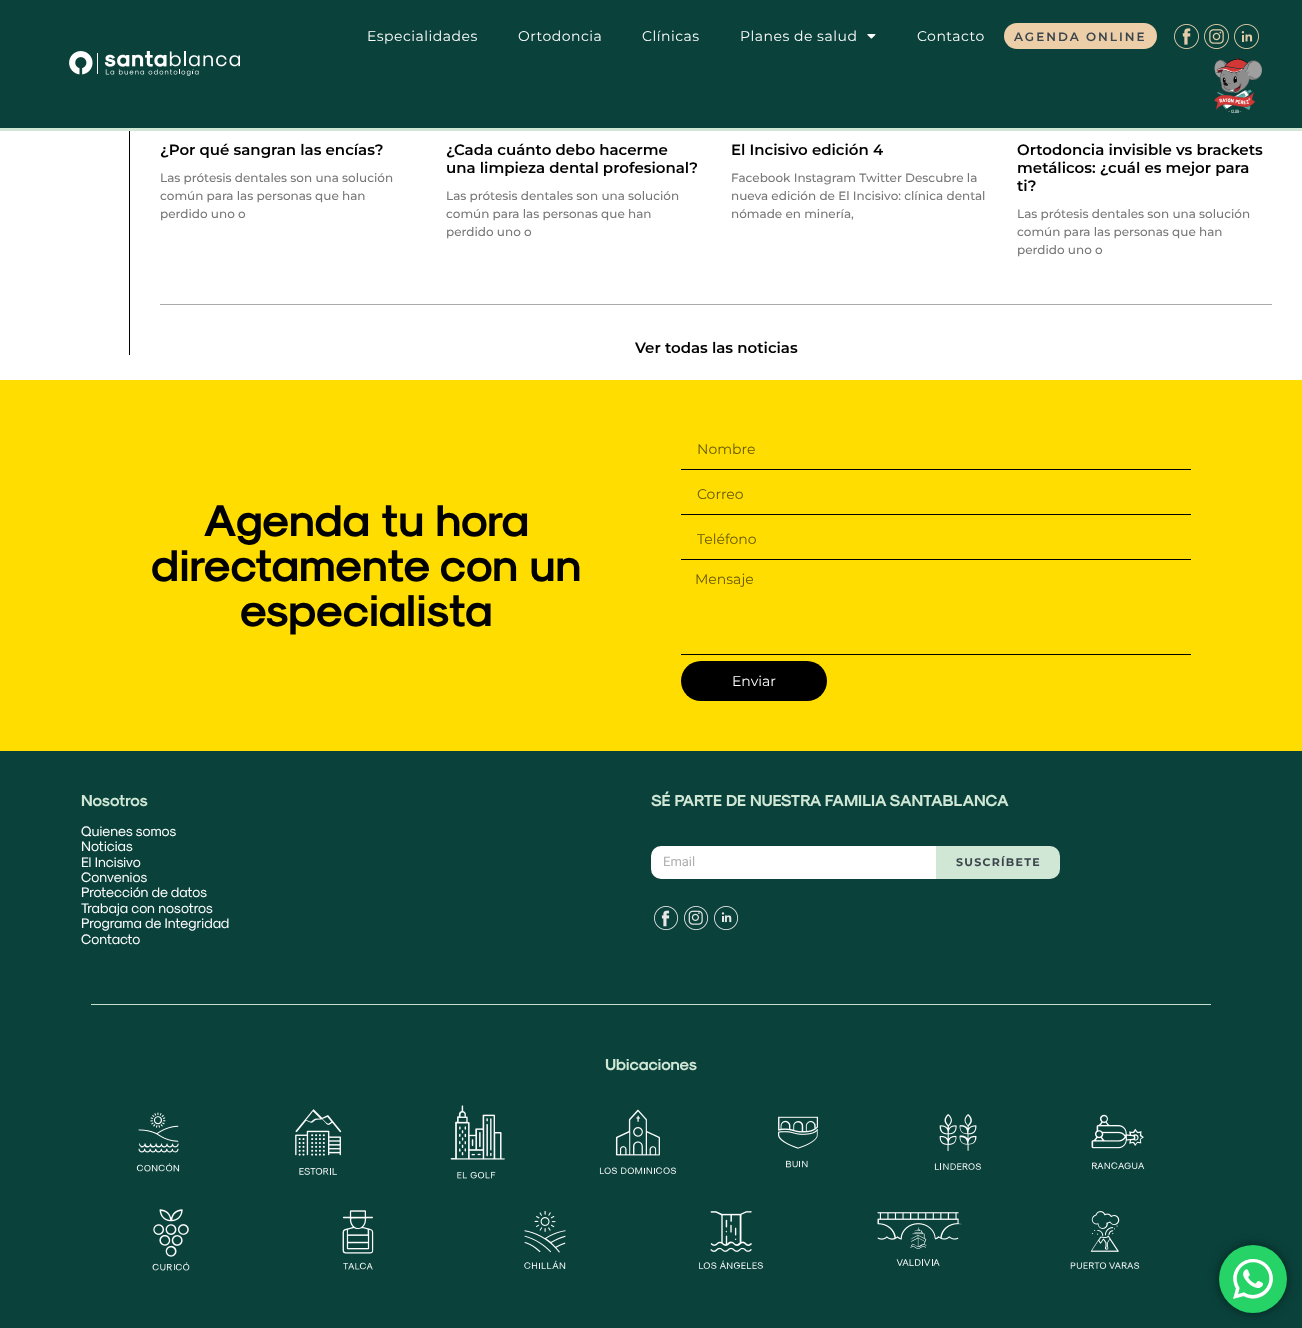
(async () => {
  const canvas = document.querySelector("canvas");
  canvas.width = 1302;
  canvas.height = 1328;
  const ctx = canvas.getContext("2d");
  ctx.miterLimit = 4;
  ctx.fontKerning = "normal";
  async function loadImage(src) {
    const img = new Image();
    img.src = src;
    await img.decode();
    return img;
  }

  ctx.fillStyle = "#ffffff";
  ctx.fillRect(0, 0, 1302, 1328);
  ctx.fillStyle = "#0a423b";
  ctx.fillRect(0, 0, 1302, 128);
  ctx.fillStyle = "#d1e7d6";
  ctx.fillRect(0, 128, 1302, 3);
  ctx.drawImage(await loadImage("img/1.png"), 867, 34, 9, 5);
  ctx.fillStyle = "#eccea9";
  ctx.beginPath();
  ctx.roundRect(1004, 23, 153, 26, 13);
  ctx.fill();
  ctx.drawImage(await loadImage("img/2.png"), 1174, 24, 25, 25);
  ctx.drawImage(await loadImage("img/3.png"), 1204, 24, 25, 25);
  ctx.drawImage(await loadImage("img/4.png"), 1234, 24, 25, 25);
  ctx.drawImage(await loadImage("img/5.png"), 1214, 58, 48, 55);
  ctx.drawImage(await loadImage("img/6.png"), 69, 51, 171, 25);
  for (const [x, y, w, h, color] of [
    [129, 131, 1, 224, "#000000"],
    [160, 304, 1112, 1, "#aaaaaa"],
    [0, 380, 1302, 371, "#ffdd00"],
    [681, 469, 510, 1, "#000000"],
    [681, 514, 510, 1, "#000000"],
    [681, 559, 510, 1, "#000000"],
    [681, 654, 510, 1, "#000000"],
  ]) {
    ctx.fillStyle = color;
    ctx.fillRect(x, y, w, h);
  }
  ctx.beginPath();
  ctx.roundRect(681, 661, 146, 40, 20);
  ctx.fill();
  ctx.fillStyle = "#0a423b";
  ctx.fillRect(0, 751, 1302, 577);
  ctx.fillStyle = "#ffffff";
  ctx.beginPath();
  ctx.roundRect(651, 846, 285, 33, [10, 0, 0, 10]);
  ctx.fill();
  ctx.fillStyle = "#d1e7d6";
  ctx.beginPath();
  ctx.roundRect(936, 846, 124, 33, [0, 10, 10, 0]);
  ctx.fill();
  ctx.drawImage(await loadImage("img/7.png"), 654, 906, 25, 25);
  ctx.drawImage(await loadImage("img/8.png"), 684, 906, 25, 25);
  ctx.drawImage(await loadImage("img/9.png"), 714, 906, 25, 25);
  ctx.fillStyle = "#c6dece";
  ctx.fillRect(91, 1004, 1120, 1);
  ctx.drawImage(await loadImage("img/10.png"), 136, 1112, 44, 60);
  ctx.drawImage(await loadImage("img/11.png"), 295, 1109, 47, 66);
  ctx.drawImage(await loadImage("img/12.png"), 450, 1105, 55, 74);
  ctx.drawImage(await loadImage("img/13.png"), 599, 1109, 77, 65);
  ctx.drawImage(await loadImage("img/14.png"), 777, 1116, 42, 52);
  ctx.drawImage(await loadImage("img/15.png"), 934, 1114, 47, 56);
  ctx.drawImage(await loadImage("img/16.png"), 1091, 1114, 54, 56);
  ctx.drawImage(await loadImage("img/17.png"), 152, 1209, 38, 62);
  ctx.drawImage(await loadImage("img/18.png"), 342, 1210, 32, 60);
  ctx.drawImage(await loadImage("img/19.png"), 524, 1210, 42, 59);
  ctx.drawImage(await loadImage("img/20.png"), 699, 1211, 64, 58);
  ctx.drawImage(await loadImage("img/21.png"), 877, 1212, 85, 54);
  ctx.drawImage(await loadImage("img/22.png"), 1070, 1211, 70, 58);
  ctx.fillStyle = "rgba(0, 0, 0, 0.5)";
  ctx.filter = "blur(5.5px)";
  ctx.beginPath();
  ctx.roundRect(1219, 1245, 68, 68, 34);
  ctx.fill();
  ctx.filter = "none";
  ctx.fillStyle = "#25d366";
  ctx.beginPath();
  ctx.arc(1253, 1279, 34, 0, Math.PI * 2);
  ctx.fill();
  ctx.drawImage(await loadImage("img/23.png"), 1233, 1259, 40, 40);
  ctx.letterSpacing = "0.5px";
  ctx.font = "14px Montserrat";
  ctx.fillStyle = "#ffffff";
  for (const [text, x, y] of [
    ["Especialidades", 367, 41],
    ["Ortodoncia", 518, 41],
    ["Clínicas", 642, 41],
    ["Planes de salud", 740, 41],
    ["Contacto", 917, 41],
  ]) {
    ctx.fillText(text, x, y);
  }
  ctx.letterSpacing = "2px";
  ctx.font = "600 12px Montserrat";
  ctx.fillStyle = "#3b454c";
  ctx.fillText("AGENDA ONLINE", 1014, 41);
  ctx.letterSpacing = "0px";
  ctx.font = "600 15px Montserrat";
  ctx.fillStyle = "#000000";
  ctx.fillText("¿Por qué sangran las encías?", 160, 155);
  ctx.font = "500 12px Montserrat";
  ctx.fillStyle = "#777777";
  for (const [text, x, y] of [
    ["Las prótesis dentales son una solución", 160, 182],
    ["común para las personas que han", 160, 200],
    ["perdido uno o", 160, 218],
  ]) {
    ctx.fillText(text, x, y);
  }
  ctx.font = "600 15px Montserrat";
  ctx.fillStyle = "#000000";
  ctx.fillText("¿Cada cuánto debo hacerme", 446, 155);
  ctx.fillText("una limpieza dental profesional?", 446, 173);
  ctx.font = "500 12px Montserrat";
  ctx.fillStyle = "#777777";
  for (const [text, x, y] of [
    ["Las prótesis dentales son una solución", 446, 200],
    ["común para las personas que han", 446, 218],
    ["perdido uno o", 446, 236],
  ]) {
    ctx.fillText(text, x, y);
  }
  ctx.font = "600 15px Montserrat";
  ctx.fillStyle = "#000000";
  ctx.fillText("El Incisivo edición 4", 731, 155);
  ctx.font = "500 12px Montserrat";
  ctx.fillStyle = "#777777";
  for (const [text, x, y] of [
    ["Facebook Instagram Twitter Descubre la", 731, 182],
    ["nueva edición de El Incisivo: clínica dental", 731, 200],
    ["nómade en minería,", 731, 218],
  ]) {
    ctx.fillText(text, x, y);
  }
  ctx.font = "600 15px Montserrat";
  ctx.fillStyle = "#000000";
  for (const [text, x, y] of [
    ["Ortodoncia invisible vs brackets", 1017, 155],
    ["metálicos: ¿cuál es mejor para", 1017, 173],
    ["ti?", 1017, 191],
  ]) {
    ctx.fillText(text, x, y);
  }
  ctx.font = "500 12px Montserrat";
  ctx.fillStyle = "#777777";
  for (const [text, x, y] of [
    ["Las prótesis dentales son una solución", 1017, 218],
    ["común para las personas que han", 1017, 236],
    ["perdido uno o", 1017, 254],
  ]) {
    ctx.fillText(text, x, y);
  }
  ctx.font = "600 15px Montserrat";
  ctx.fillStyle = "#000000";
  ctx.fillText("Ver todas las noticias", 635, 353);
  ctx.font = "bold 45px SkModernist";
  for (const [text, x, y] of [
    ["Agenda tu hora", 203, 536],
    ["directamente con un", 151, 581],
    ["especialista", 240, 626],
  ]) {
    ctx.fillText(text, x, y);
  }
  ctx.font = "14px Montserrat";
  ctx.fillStyle = "#665800";
  for (const [text, x, y] of [
    ["Nombre", 697, 454],
    ["Correo", 697, 499],
    ["Teléfono", 697, 544],
    ["Mensaje", 695, 584],
  ]) {
    ctx.fillText(text, x, y);
  }
  ctx.fillStyle = "#ffffff";
  ctx.fillText("Enviar", 732, 686);
  ctx.font = "bold 16px SkModernist";
  ctx.fillStyle = "#d1e7d6";
  ctx.fillText("Nosotros", 81, 806);
  ctx.font = "14px SkModernist";
  ctx.fillStyle = "#ffffff";
  for (const [text, x, y] of [
    ["Quienes somos", 81, 836],
    ["Noticias", 81, 851],
    ["El Incisivo", 81, 867],
    ["Convenios", 81, 882],
    ["Protección de datos", 81, 897],
    ["Trabaja con nosotros", 81, 913],
    ["Programa de Integridad", 81, 928],
    ["Contacto", 81, 944],
  ]) {
    ctx.fillText(text, x, y);
  }
  ctx.font = "bold 16px SkModernist";
  ctx.fillStyle = "#d1e7d6";
  ctx.fillText("SÉ PARTE DE NUESTRA FAMILIA SANTABLANCA", 651, 806);
  ctx.font = "13px Roboto";
  ctx.fillStyle = "#afafaf";
  ctx.fillText("Email", 663, 866);
  ctx.letterSpacing = "1.25px";
  ctx.font = "bold 11px Montserrat";
  ctx.fillStyle = "#3b454c";
  ctx.fillText("SUSCRÍBETE", 956, 866);
  ctx.letterSpacing = "0px";
  ctx.font = "bold 16px SkModernist";
  ctx.fillStyle = "#d1e7d6";
  ctx.fillText("Ubicaciones", 605, 1070);
})();
